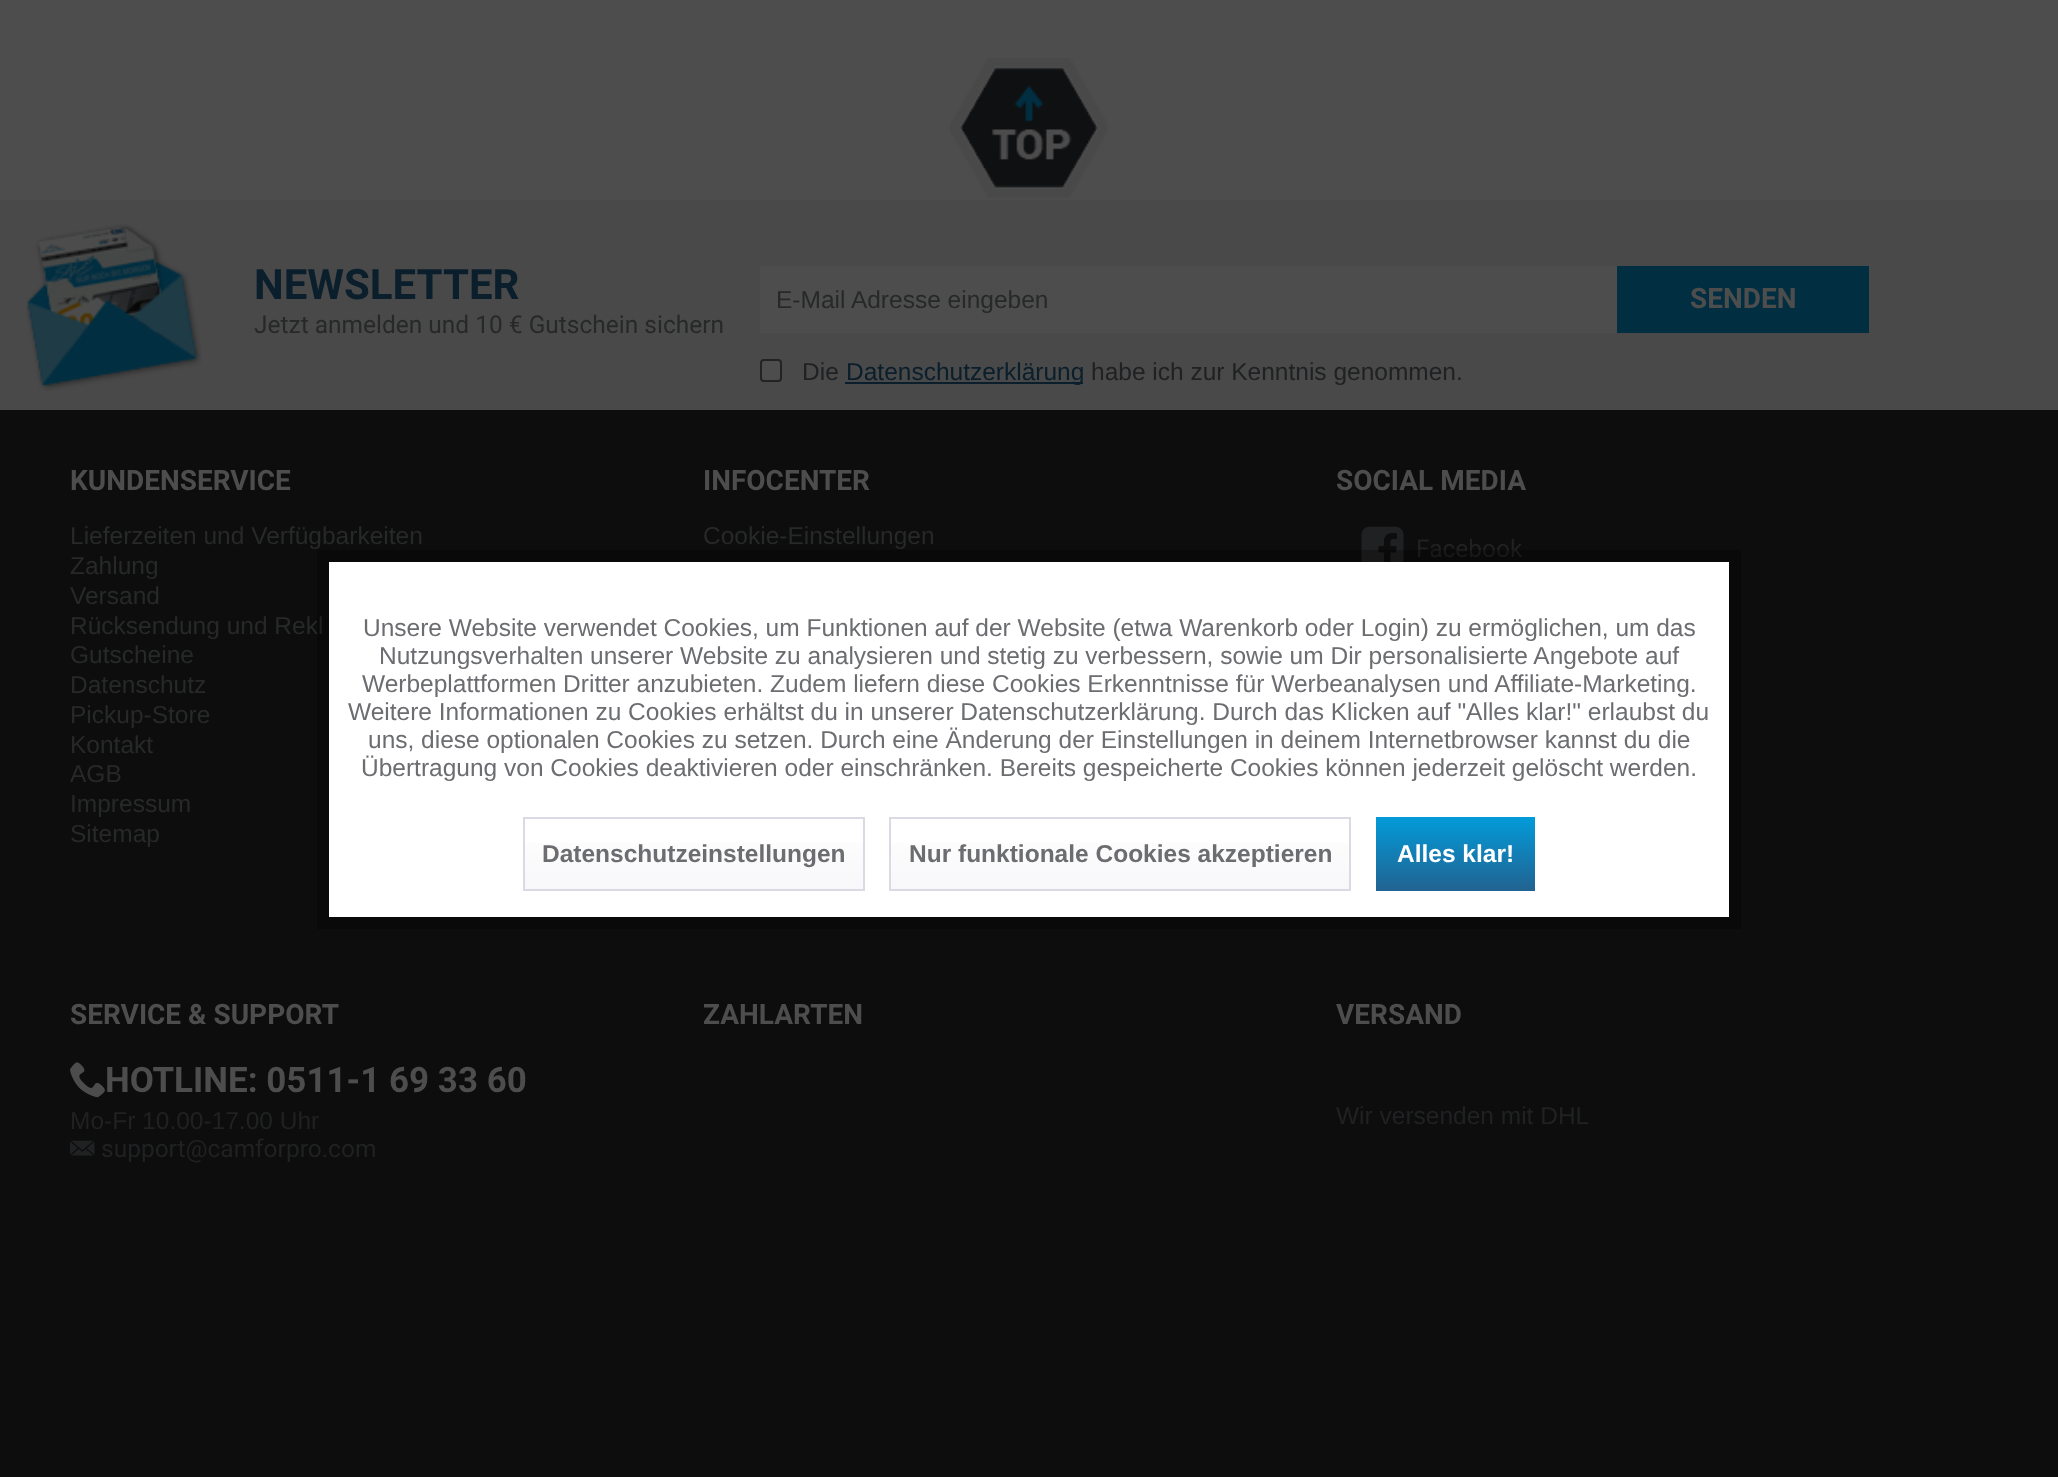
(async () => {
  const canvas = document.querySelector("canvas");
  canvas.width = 2058;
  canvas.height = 1477;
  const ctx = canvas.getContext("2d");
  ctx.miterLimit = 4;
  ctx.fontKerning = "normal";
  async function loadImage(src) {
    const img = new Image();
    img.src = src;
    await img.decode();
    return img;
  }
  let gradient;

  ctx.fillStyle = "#4d4d4d";
  ctx.fillRect(0, 0, 2058, 1477);
  ctx.drawImage(await loadImage("img/1.png"), 950, 58, 158, 140);
  ctx.fillStyle = "#494949";
  ctx.fillRect(0, 200, 2058, 210);
  ctx.drawImage(await loadImage("img/2.png"), 26, 224, 176, 167);
  ctx.fillStyle = "#4d4d4d";
  ctx.fillRect(760, 266, 857, 67);
  ctx.fillStyle = "#012f41";
  ctx.fillRect(1617, 266, 252, 67);
  ctx.fillStyle = "#4d4d4d";
  ctx.beginPath();
  ctx.roundRect(761, 360, 20, 21, 3);
  ctx.fill();
  ctx.strokeStyle = "#232323";
  ctx.lineWidth = 2;
  ctx.stroke();
  ctx.fillStyle = "#0a1e2c";
  ctx.fillRect(845, 382, 238, 2);
  ctx.fillStyle = "#0d0d0d";
  ctx.fillRect(0, 410, 2058, 1067);
  ctx.drawImage(await loadImage("img/3.png"), 1361, 526, 43, 36);
  ctx.drawImage(await loadImage("img/4.png"), 70, 1062, 35, 36);
  ctx.drawImage(await loadImage("img/5.png"), 70, 1140, 25, 16);
  ctx.font = "bold 42px Roboto";
  ctx.fillStyle = "#0a1e2c";
  ctx.fillText("NEWSLETTER", 254, 299);
  ctx.font = "24.5px Roboto";
  ctx.fillStyle = "#272929";
  ctx.fillText("Jetzt anmelden und 10 € Gutschein sichern", 254, 333);
  ctx.font = "24.5px Liberation Sans";
  ctx.fillText("E-Mail Adresse eingeben", 776, 308);
  ctx.font = "bold 28px Roboto";
  ctx.fillStyle = "#4d4d4d";
  ctx.fillText("SENDEN", 1690, 308);
  ctx.font = "24.5px Liberation Sans";
  ctx.fillStyle = "#202122";
  ctx.fillText("Die", 802, 380);
  ctx.fillStyle = "#0a1e2c";
  ctx.fillText("Datenschutzerklärung", 846, 380);
  ctx.fillStyle = "#202122";
  ctx.fillText("habe ich zur Kenntnis genommen.", 1091, 380);
  ctx.font = "bold 28px Roboto";
  ctx.fillStyle = "#4d4d4d";
  ctx.fillText("KUNDENSERVICE", 70, 490);
  ctx.font = "24.5px Liberation Sans";
  ctx.fillStyle = "#272929";
  for (const [text, x, y] of [
    ["Lieferzeiten und Verfügbarkeiten", 70, 544],
    ["Zahlung", 70, 574],
    ["Versand", 70, 604],
    ["Rücksendung und Rekl", 70, 634],
    ["Gutscheine", 70, 663],
    ["Datenschutz", 70, 693],
    ["Pickup-Store", 70, 723],
    ["Kontakt", 70, 753],
    ["AGB", 70, 782],
    ["Impressum", 70, 812],
    ["Sitemap", 70, 842],
  ]) {
    ctx.fillText(text, x, y);
  }
  ctx.font = "bold 28px Roboto";
  ctx.fillStyle = "#4d4d4d";
  ctx.fillText("INFOCENTER", 703, 490);
  ctx.font = "24.5px Liberation Sans";
  ctx.fillStyle = "#272929";
  ctx.fillText("Cookie-Einstellungen", 703, 544);
  ctx.font = "bold 28px Roboto";
  ctx.fillStyle = "#4d4d4d";
  ctx.fillText("SOCIAL MEDIA", 1336, 490);
  ctx.font = "24.5px Roboto";
  ctx.fillStyle = "#202122";
  ctx.fillText("Facebook", 1416, 557);
  ctx.font = "bold 28px Roboto";
  ctx.fillStyle = "#4d4d4d";
  ctx.fillText("SERVICE & SUPPORT", 70, 1024);
  ctx.font = "bold 35px Roboto";
  ctx.fillText("HOTLINE: 0511-1 69 33 60", 105, 1092);
  ctx.font = "24.5px Liberation Sans";
  ctx.fillStyle = "#202122";
  ctx.fillText("Mo-Fr 10.00-17.00 Uhr", 70, 1129);
  ctx.font = "24.5px Roboto";
  ctx.fillText("support@camforpro.com", 101, 1157);
  ctx.font = "bold 28px Roboto";
  ctx.fillStyle = "#4d4d4d";
  ctx.fillText("ZAHLARTEN", 703, 1024);
  ctx.fillText("VERSAND", 1336, 1024);
  ctx.font = "24.5px Liberation Sans";
  ctx.fillStyle = "#202122";
  ctx.fillText("Wir versenden mit DHL", 1336, 1124);
  ctx.strokeStyle = "rgba(0, 0, 0, 0.25)";
  ctx.lineWidth = 12;
  ctx.strokeRect(323, 556, 1412, 367);
  ctx.fillStyle = "#ffffff";
  ctx.fillRect(329, 562, 1400, 355);
  ctx.fillStyle = "#6c6d71";
  for (const [text, x, y] of [
    ["Unsere Website verwendet Cookies, um Funktionen auf der Website (etwa Warenkorb oder Login) zu ermöglichen, um das", 363, 636],
    ["Nutzungsverhalten unserer Website zu analysieren und stetig zu verbessern, sowie um Dir personalisierte Angebote auf", 379, 664],
    ["Werbeplattformen Dritter anzubieten. Zudem liefern diese Cookies Erkenntnisse für Werbeanalysen und Affiliate-Marketing.", 362, 692],
    ["Weitere Informationen zu Cookies erhältst du in unserer Datenschutzerklärung. Durch das Klicken auf \"Alles klar!\" erlaubst du", 348, 720],
    ["uns, diese optionalen Cookies zu setzen. Durch eine Änderung der Einstellungen in deinem Internetbrowser kannst du die", 368, 748],
    ["Übertragung von Cookies deaktivieren oder einschränken. Bereits gespeicherte Cookies können jederzeit gelöscht werden.", 361, 776],
  ]) {
    ctx.fillText(text, x, y);
  }
  gradient = ctx.createLinearGradient(694, 818, 694, 888);
  gradient.addColorStop(0, "#ffffff");
  gradient.addColorStop(1, "#f8f8fa");
  ctx.fillStyle = gradient;
  ctx.fillRect(525, 843, 338, 46);
  ctx.strokeStyle = "#dadae5";
  ctx.lineWidth = 2;
  ctx.strokeRect(524, 818, 340, 72);
  ctx.font = "bold 24.5px Liberation Sans";
  ctx.fillStyle = "#6c6d71";
  ctx.fillText("Datenschutzeinstellungen", 542, 862);
  gradient = ctx.createLinearGradient(1120, 818, 1120, 888);
  gradient.addColorStop(0, "#ffffff");
  gradient.addColorStop(1, "#f8f8fa");
  ctx.fillStyle = gradient;
  ctx.fillRect(891, 843, 458, 46);
  ctx.strokeRect(890, 818, 460, 72);
  ctx.fillStyle = "#6c6d71";
  ctx.fillText("Nur funktionale Cookies akzeptieren", 909, 862);
  gradient = ctx.createLinearGradient(1455, 816, 1455, 890);
  gradient.addColorStop(0, "#029cda");
  gradient.addColorStop(1, "#216392");
  ctx.fillStyle = gradient;
  ctx.fillRect(1376, 817, 159, 74);
  ctx.fillStyle = "#ffffff";
  ctx.fillText("Alles klar!", 1397, 862);
})();
